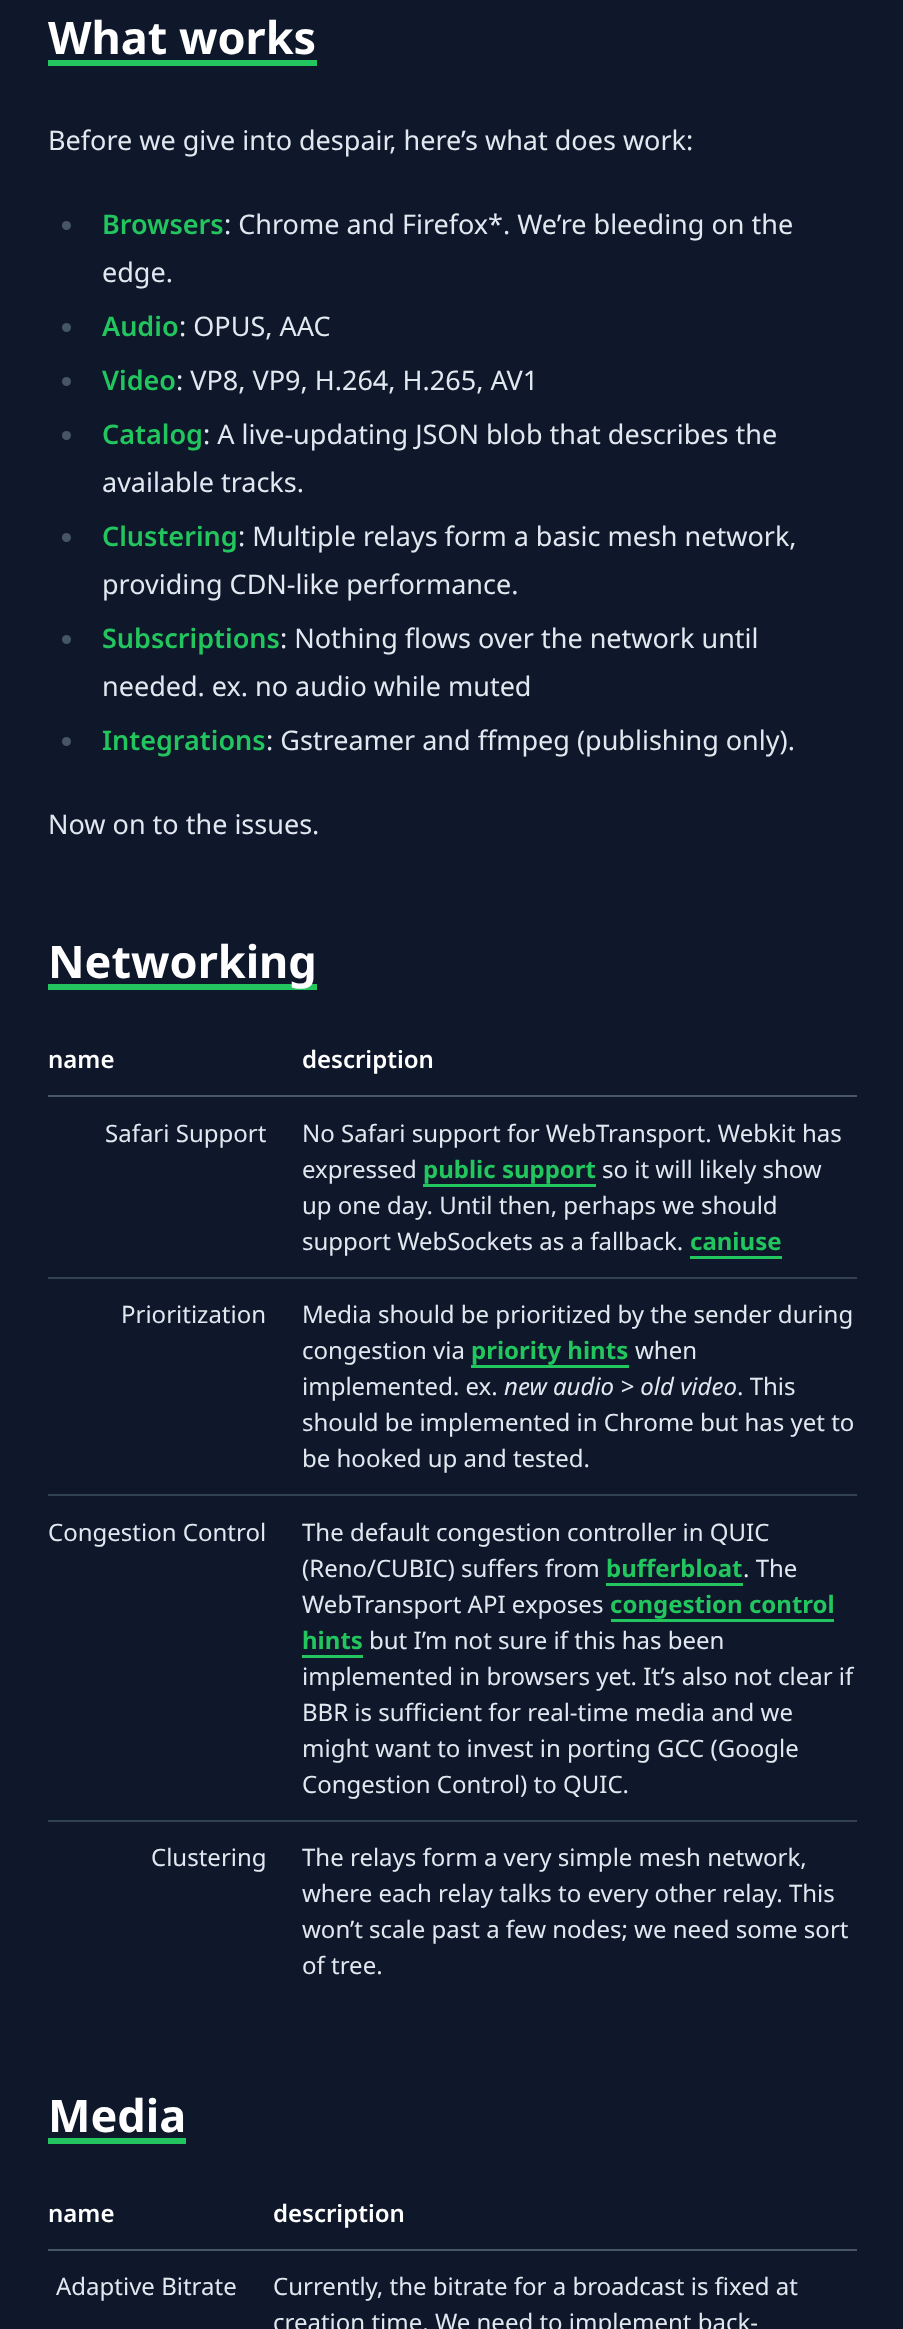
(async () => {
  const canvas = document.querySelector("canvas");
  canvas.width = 903;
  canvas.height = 2329;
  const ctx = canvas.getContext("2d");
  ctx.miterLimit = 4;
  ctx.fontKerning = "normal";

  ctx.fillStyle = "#0f172a";
  ctx.fillRect(0, 0, 903, 2329);
  ctx.fillStyle = "#22c55e";
  ctx.fillRect(48, 60, 269, 6);
  ctx.fillStyle = "#475569";
  ctx.beginPath();
  ctx.arc(66.5, 225.5, 4.5, 0, Math.PI * 2);
  ctx.fill();
  ctx.beginPath();
  ctx.arc(66.5, 327.5, 4.5, 0, Math.PI * 2);
  ctx.fill();
  ctx.beginPath();
  ctx.arc(66.5, 381.5, 4.5, 0, Math.PI * 2);
  ctx.fill();
  ctx.beginPath();
  ctx.arc(66.5, 435.5, 4.5, 0, Math.PI * 2);
  ctx.fill();
  ctx.beginPath();
  ctx.arc(66.5, 537.5, 4.5, 0, Math.PI * 2);
  ctx.fill();
  ctx.beginPath();
  ctx.arc(66.5, 639.5, 4.5, 0, Math.PI * 2);
  ctx.fill();
  ctx.beginPath();
  ctx.arc(66.5, 741.5, 4.5, 0, Math.PI * 2);
  ctx.fill();
  for (const [x, y, w, h, color] of [
    [48, 984, 269, 6, "#22c55e"],
    [48, 1095, 809, 2, "#475569"],
    [48, 1277, 809, 2, "#334155"],
    [423, 1184, 173, 3, "#22c55e"],
    [690, 1256, 92, 3, "#22c55e"],
    [48, 1494, 809, 2, "#334155"],
    [471, 1365, 158, 3, "#22c55e"],
    [48, 1820, 809, 2, "#334155"],
    [606, 1583, 137, 3, "#22c55e"],
    [611, 1619, 223, 3, "#22c55e"],
    [302, 1655, 61, 3, "#22c55e"],
    [48, 2138, 138, 6, "#22c55e"],
    [48, 2249, 809, 2, "#475569"],
  ]) {
    ctx.fillStyle = color;
    ctx.fillRect(x, y, w, h);
  }
  ctx.font = "bold 45px Noto Sans";
  ctx.fillStyle = "#ffffff";
  ctx.fillText("What works", 48, 54);
  ctx.font = "27px Noto Sans";
  ctx.fillStyle = "#e2e8f0";
  ctx.fillText("Before we give into despair, here’s what does work:", 48, 150);
  ctx.font = "600 27px Noto Sans";
  ctx.fillStyle = "#22c55e";
  ctx.fillText("Browsers", 102, 234);
  ctx.font = "27px Noto Sans";
  ctx.fillStyle = "#e2e8f0";
  ctx.fillText(": Chrome and Firefox*. We’re bleeding on the", 224, 234);
  ctx.fillText("edge.", 102, 282);
  ctx.font = "600 27px Noto Sans";
  ctx.fillStyle = "#22c55e";
  ctx.fillText("Audio", 102, 336);
  ctx.font = "27px Noto Sans";
  ctx.fillStyle = "#e2e8f0";
  ctx.fillText(": OPUS, AAC", 179, 336);
  ctx.font = "600 27px Noto Sans";
  ctx.fillStyle = "#22c55e";
  ctx.fillText("Video", 102, 390);
  ctx.font = "27px Noto Sans";
  ctx.fillStyle = "#e2e8f0";
  ctx.fillText(": VP8, VP9, H.264, H.265, AV1", 176, 390);
  ctx.font = "600 27px Noto Sans";
  ctx.fillStyle = "#22c55e";
  ctx.fillText("Catalog", 102, 444);
  ctx.font = "27px Noto Sans";
  ctx.fillStyle = "#e2e8f0";
  ctx.fillText(": A live-updating JSON blob that describes the", 203, 444);
  ctx.fillText("available tracks.", 102, 492);
  ctx.font = "600 27px Noto Sans";
  ctx.fillStyle = "#22c55e";
  ctx.fillText("Clustering", 102, 546);
  ctx.font = "27px Noto Sans";
  ctx.fillStyle = "#e2e8f0";
  ctx.fillText(": Multiple relays form a basic mesh network,", 238, 546);
  ctx.fillText("providing CDN-like performance.", 102, 594);
  ctx.font = "600 27px Noto Sans";
  ctx.fillStyle = "#22c55e";
  ctx.fillText("Subscriptions", 102, 648);
  ctx.font = "27px Noto Sans";
  ctx.fillStyle = "#e2e8f0";
  ctx.fillText(": Nothing flows over the network until", 280, 648);
  ctx.fillText("needed. ex. no audio while muted", 102, 696);
  ctx.font = "600 27px Noto Sans";
  ctx.fillStyle = "#22c55e";
  ctx.fillText("Integrations", 102, 750);
  ctx.font = "27px Noto Sans";
  ctx.fillStyle = "#e2e8f0";
  ctx.fillText(": Gstreamer and ffmpeg (publishing only).", 266, 750);
  ctx.fillText("Now on to the issues.", 48, 834);
  ctx.font = "bold 45px Noto Sans";
  ctx.fillStyle = "#ffffff";
  ctx.fillText("Networking", 48, 978);
  ctx.font = "600 24px Noto Sans";
  ctx.fillText("name", 48, 1068);
  ctx.fillText("description", 302, 1068);
  ctx.font = "24px Noto Sans";
  ctx.fillStyle = "#e2e8f0";
  for (const [text, x, y] of [
    ["Safari Support", 105, 1142],
    ["No Safari support for WebTransport. Webkit has", 302, 1142],
    ["expressed", 302, 1178],
  ]) {
    ctx.fillText(text, x, y);
  }
  ctx.font = "bold 24px Noto Sans";
  ctx.fillStyle = "#22c55e";
  ctx.fillText("public support", 423, 1178);
  ctx.font = "24px Noto Sans";
  ctx.fillStyle = "#e2e8f0";
  for (const [text, x, y] of [
    ["so it will likely show", 602, 1178],
    ["up one day. Until then, perhaps we should", 302, 1214],
    ["support WebSockets as a fallback.", 302, 1250],
  ]) {
    ctx.fillText(text, x, y);
  }
  ctx.font = "bold 24px Noto Sans";
  ctx.fillStyle = "#22c55e";
  ctx.fillText("caniuse", 690, 1250);
  ctx.font = "24px Noto Sans";
  ctx.fillStyle = "#e2e8f0";
  for (const [text, x, y] of [
    ["Prioritization", 121, 1323],
    ["Media should be prioritized by the sender during", 302, 1323],
    ["congestion via", 302, 1359],
  ]) {
    ctx.fillText(text, x, y);
  }
  ctx.font = "bold 24px Noto Sans";
  ctx.fillStyle = "#22c55e";
  ctx.fillText("priority hints", 471, 1359);
  ctx.font = "24px Noto Sans";
  ctx.fillStyle = "#e2e8f0";
  ctx.fillText("when", 635, 1359);
  ctx.fillText("implemented. ex.", 302, 1395);
  ctx.font = "italic 24px Noto Sans";
  ctx.fillText("new audio > old video", 504, 1395);
  ctx.font = "24px Noto Sans";
  for (const [text, x, y] of [
    [". This", 737, 1395],
    ["should be implemented in Chrome but has yet to", 302, 1431],
    ["be hooked up and tested.", 302, 1467],
    ["Congestion Control", 48, 1541],
    ["The default congestion controller in QUIC", 302, 1541],
    ["(Reno/CUBIC) suffers from", 302, 1577],
  ]) {
    ctx.fillText(text, x, y);
  }
  ctx.font = "bold 24px Noto Sans";
  ctx.fillStyle = "#22c55e";
  ctx.fillText("bufferbloat", 606, 1577);
  ctx.font = "24px Noto Sans";
  ctx.fillStyle = "#e2e8f0";
  ctx.fillText(". The", 743, 1577);
  ctx.fillText("WebTransport API exposes", 302, 1613);
  ctx.font = "bold 24px Noto Sans";
  ctx.fillStyle = "#22c55e";
  ctx.fillText("congestion control", 610, 1613);
  ctx.fillText("hints", 302, 1649);
  ctx.font = "24px Noto Sans";
  ctx.fillStyle = "#e2e8f0";
  for (const [text, x, y] of [
    ["but I’m not sure if this has been", 369, 1649],
    ["implemented in browsers yet. It’s also not clear if", 302, 1685],
    ["BBR is sufficient for real-time media and we", 302, 1721],
    ["might want to invest in porting GCC (Google", 302, 1757],
    ["Congestion Control) to QUIC.", 302, 1793],
    ["Clustering", 151, 1866],
    ["The relays form a very simple mesh network,", 302, 1866],
    ["where each relay talks to every other relay. This", 302, 1902],
    ["won’t scale past a few nodes; we need some sort", 302, 1938],
    ["of tree.", 302, 1974],
  ]) {
    ctx.fillText(text, x, y);
  }
  ctx.font = "bold 45px Noto Sans";
  ctx.fillStyle = "#ffffff";
  ctx.fillText("Media", 48, 2132);
  ctx.font = "600 24px Noto Sans";
  ctx.fillText("name", 48, 2222);
  ctx.fillText("description", 273, 2222);
  ctx.font = "24px Noto Sans";
  ctx.fillStyle = "#e2e8f0";
  for (const [text, x, y] of [
    ["Adaptive Bitrate", 56, 2295],
    ["Currently, the bitrate for a broadcast is fixed at", 273, 2295],
    ["creation time. We need to implement back-", 273, 2331],
  ]) {
    ctx.fillText(text, x, y);
  }
})();
